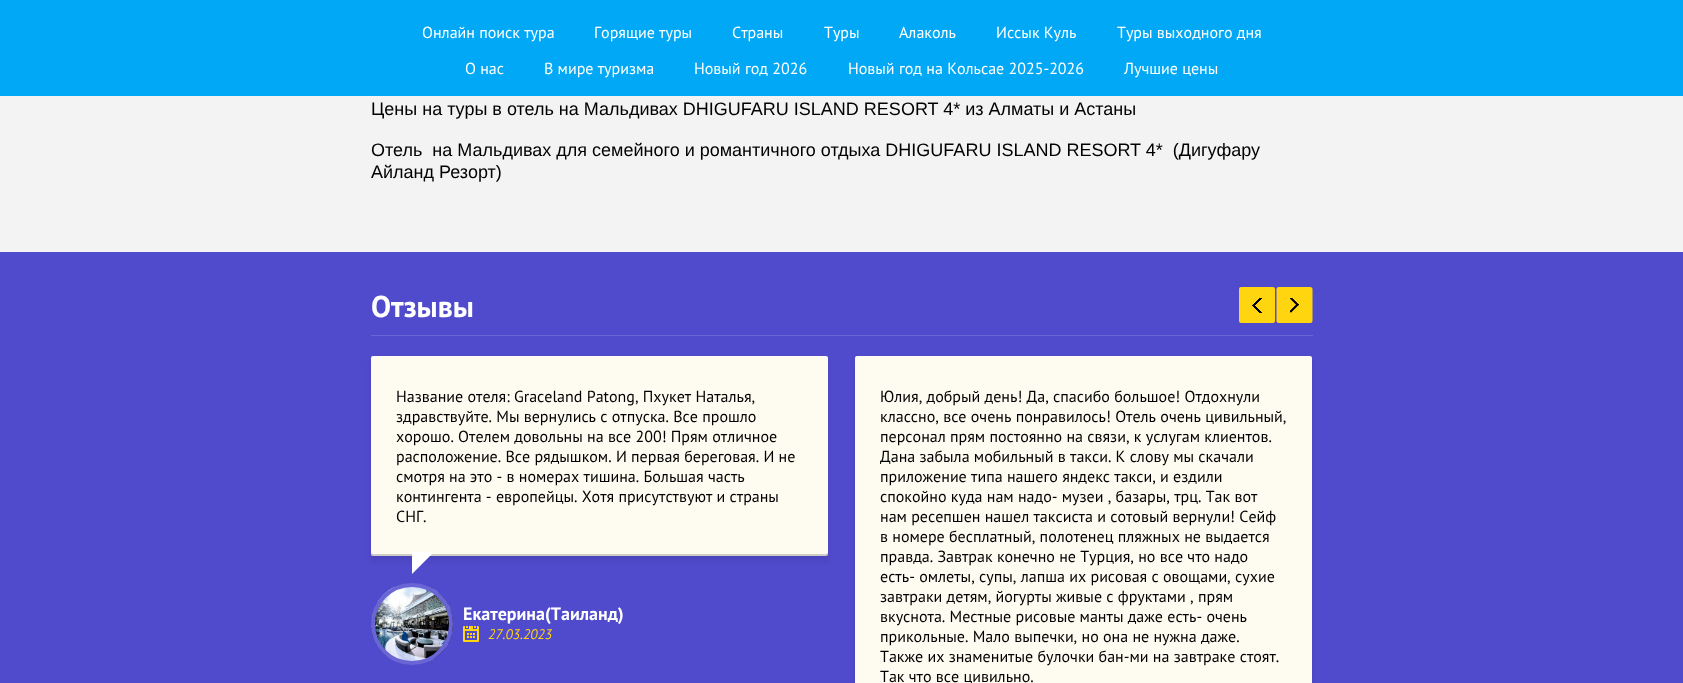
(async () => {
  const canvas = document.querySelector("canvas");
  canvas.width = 1683;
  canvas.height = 683;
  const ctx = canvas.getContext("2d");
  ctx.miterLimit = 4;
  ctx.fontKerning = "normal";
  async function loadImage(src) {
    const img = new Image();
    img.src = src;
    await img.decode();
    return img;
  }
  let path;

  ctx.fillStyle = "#f3f3f3";
  ctx.fillRect(0, 0, 1683, 683);
  for (const [x, y, w, h, color] of [
    [0, 0, 1683, 96, "#00a8f6"],
    [0, 252, 1683, 431, "#504acc"],
    [371, 335, 942, 1, "#6a65d4"],
  ]) {
    ctx.fillStyle = color;
    ctx.fillRect(x, y, w, h);
  }
  ctx.fillStyle = "#ffd510";
  ctx.beginPath();
  ctx.roundRect(1239, 287, 36, 36, 2);
  ctx.fill();
  ctx.drawImage(await loadImage("img/1.png"), 1252, 298, 10, 15);
  path = new Path2D("M1310.5 323H1278.5C1277.5 323 1276.5 322 1276.5 321V289C1276.5 288 1277.5 287 1278.5 287H1310.5C1311.5 287 1312.5 288 1312.5 289V321C1312.5 322 1311.5 323 1310.5 323Z");
  ctx.fill(path);
  ctx.drawImage(await loadImage("img/2.png"), 1290, 298, 9, 15);
  ctx.fillStyle = "rgba(0, 0, 0, 0.07)";
  ctx.filter = "blur(2.5px)";
  ctx.beginPath();
  ctx.roundRect(371, 361, 457, 200, 2);
  ctx.fill();
  ctx.filter = "none";
  ctx.fillStyle = "#fefcf1";
  ctx.beginPath();
  ctx.roundRect(371, 356, 457, 200, 2);
  ctx.fill();
  ctx.fillStyle = "rgba(0, 0, 0, 0.19)";
  path = new Path2D("M371 552C371 554 371 556 373 556H827L828 555V552C828 553 827 554 826 554H373C372 554 371 553 371 552Z");
  ctx.fill(path);
  ctx.fillStyle = "#ffffff";
  path = new Path2D("M412 552H434L412 574Z");
  ctx.fill(path);
  ctx.drawImage(await loadImage("img/3.png"), 371, 587, 82, 74);
  ctx.beginPath();
  ctx.arc(412, 624, 39, 0, Math.PI * 2);
  ctx.strokeStyle = "#6a65d4";
  ctx.lineWidth = 4;
  ctx.stroke();
  ctx.drawImage(await loadImage("img/4.png"), 463, 626, 16, 16);
  ctx.fillStyle = "rgba(0, 0, 0, 0.07)";
  ctx.filter = "blur(2.5px)";
  ctx.beginPath();
  ctx.roundRect(855, 361, 457, 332, 2);
  ctx.fill();
  ctx.filter = "none";
  ctx.fillStyle = "#fefcf1";
  ctx.beginPath();
  ctx.roundRect(855, 356, 457, 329, 2);
  ctx.fill();
  ctx.font = "16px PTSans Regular";
  ctx.fillStyle = "#ffffff";
  for (const [text, x, y] of [
    ["Онлайн поиск тура", 422, 38],
    ["Горящие туры", 594, 38],
    ["Страны", 732, 38],
    ["Туры", 824, 38],
    ["Алаколь", 899, 38],
    ["Иссык Куль", 996, 38],
    ["Туры выходного дня", 1117, 38],
    ["О нас", 465, 74],
    ["В мире туризма", 544, 74],
    ["Новый год 2026", 694, 74],
    ["Новый год на Кольсае 2025-2026", 848, 74],
    ["Лучшие цены", 1124, 74],
  ]) {
    ctx.fillText(text, x, y);
  }
  ctx.font = "18px Liberation Sans";
  ctx.fillStyle = "#000000";
  for (const [text, x, y] of [
    ["Цены на туры в отель на Мальдивах DHIGUFARU ISLAND RESORT 4* из Алматы и Астаны", 371, 115],
    ["Отель  на Мальдивах для семейного и романтичного отдыха DHIGUFARU ISLAND RESORT 4*  (Дигуфару", 371, 156],
    ["Айланд Резорт)", 371, 178],
  ]) {
    ctx.fillText(text, x, y);
  }
  ctx.font = "bold 30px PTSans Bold";
  ctx.fillStyle = "#ffffff";
  ctx.fillText("Отзывы", 371, 317);
  ctx.font = "16px PTSans Regular";
  ctx.fillStyle = "#000000";
  for (const [text, x, y] of [
    ["Название отеля: Graceland Patong, Пхукет Наталья,", 396, 402],
    ["здравствуйте. Мы вернулись с отпуска. Все прошло", 396, 422],
    ["хорошо. Отелем довольны на все 200! Прям отличное", 396, 442],
    ["расположение. Все рядышком. И первая береговая. И не", 396, 462],
    ["смотря на это - в номерах тишина. Большая часть", 396, 482],
    ["контингента - европейцы. Хотя присутствуют и страны", 396, 502],
    ["СНГ.", 396, 522],
  ]) {
    ctx.fillText(text, x, y);
  }
  ctx.font = "bold 18px PTSans Bold";
  ctx.fillStyle = "#ffffff";
  ctx.fillText("Екатерина(Таиланд)", 463, 620);
  ctx.font = "italic 14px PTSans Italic";
  ctx.fillStyle = "#ffd510";
  ctx.fillText("27.03.2023", 488, 639);
  ctx.font = "16px PTSans Regular";
  ctx.fillStyle = "#000000";
  for (const [text, x, y] of [
    ["Юлия, добрый день! Да, спасибо большое! Отдохнули", 880, 402],
    ["классно, все очень понравилось! Отель очень цивильный,", 880, 422],
    ["персонал прям постоянно на связи, к услугам клиентов.", 880, 442],
    ["Дана забыла мобильный в такси. К слову мы скачали", 880, 462],
    ["приложение типа нашего яндекс такси, и ездили", 880, 482],
    ["спокойно куда нам надо- музеи , базары, трц. Так вот", 880, 502],
    ["нам ресепшен нашел таксиста и сотовый вернули! Сейф", 880, 522],
    ["в номере бесплатный, полотенец пляжных не выдается", 880, 542],
    ["правда. Завтрак конечно не Турция, но все что надо", 880, 562],
    ["есть- омлеты, супы, лапша их рисовая с овощами, сухие", 880, 582],
    ["завтраки детям, йогурты живые с фруктами , прям", 880, 602],
    ["вкуснота. Местные рисовые манты даже есть- очень", 880, 622],
    ["прикольные. Мало выпечки, но она не нужна даже.", 880, 642],
    ["Также их знаменитые булочки бан-ми на завтраке стоят.", 880, 662],
    ["Так что все цивильно.", 880, 682],
  ]) {
    ctx.fillText(text, x, y);
  }
})();
